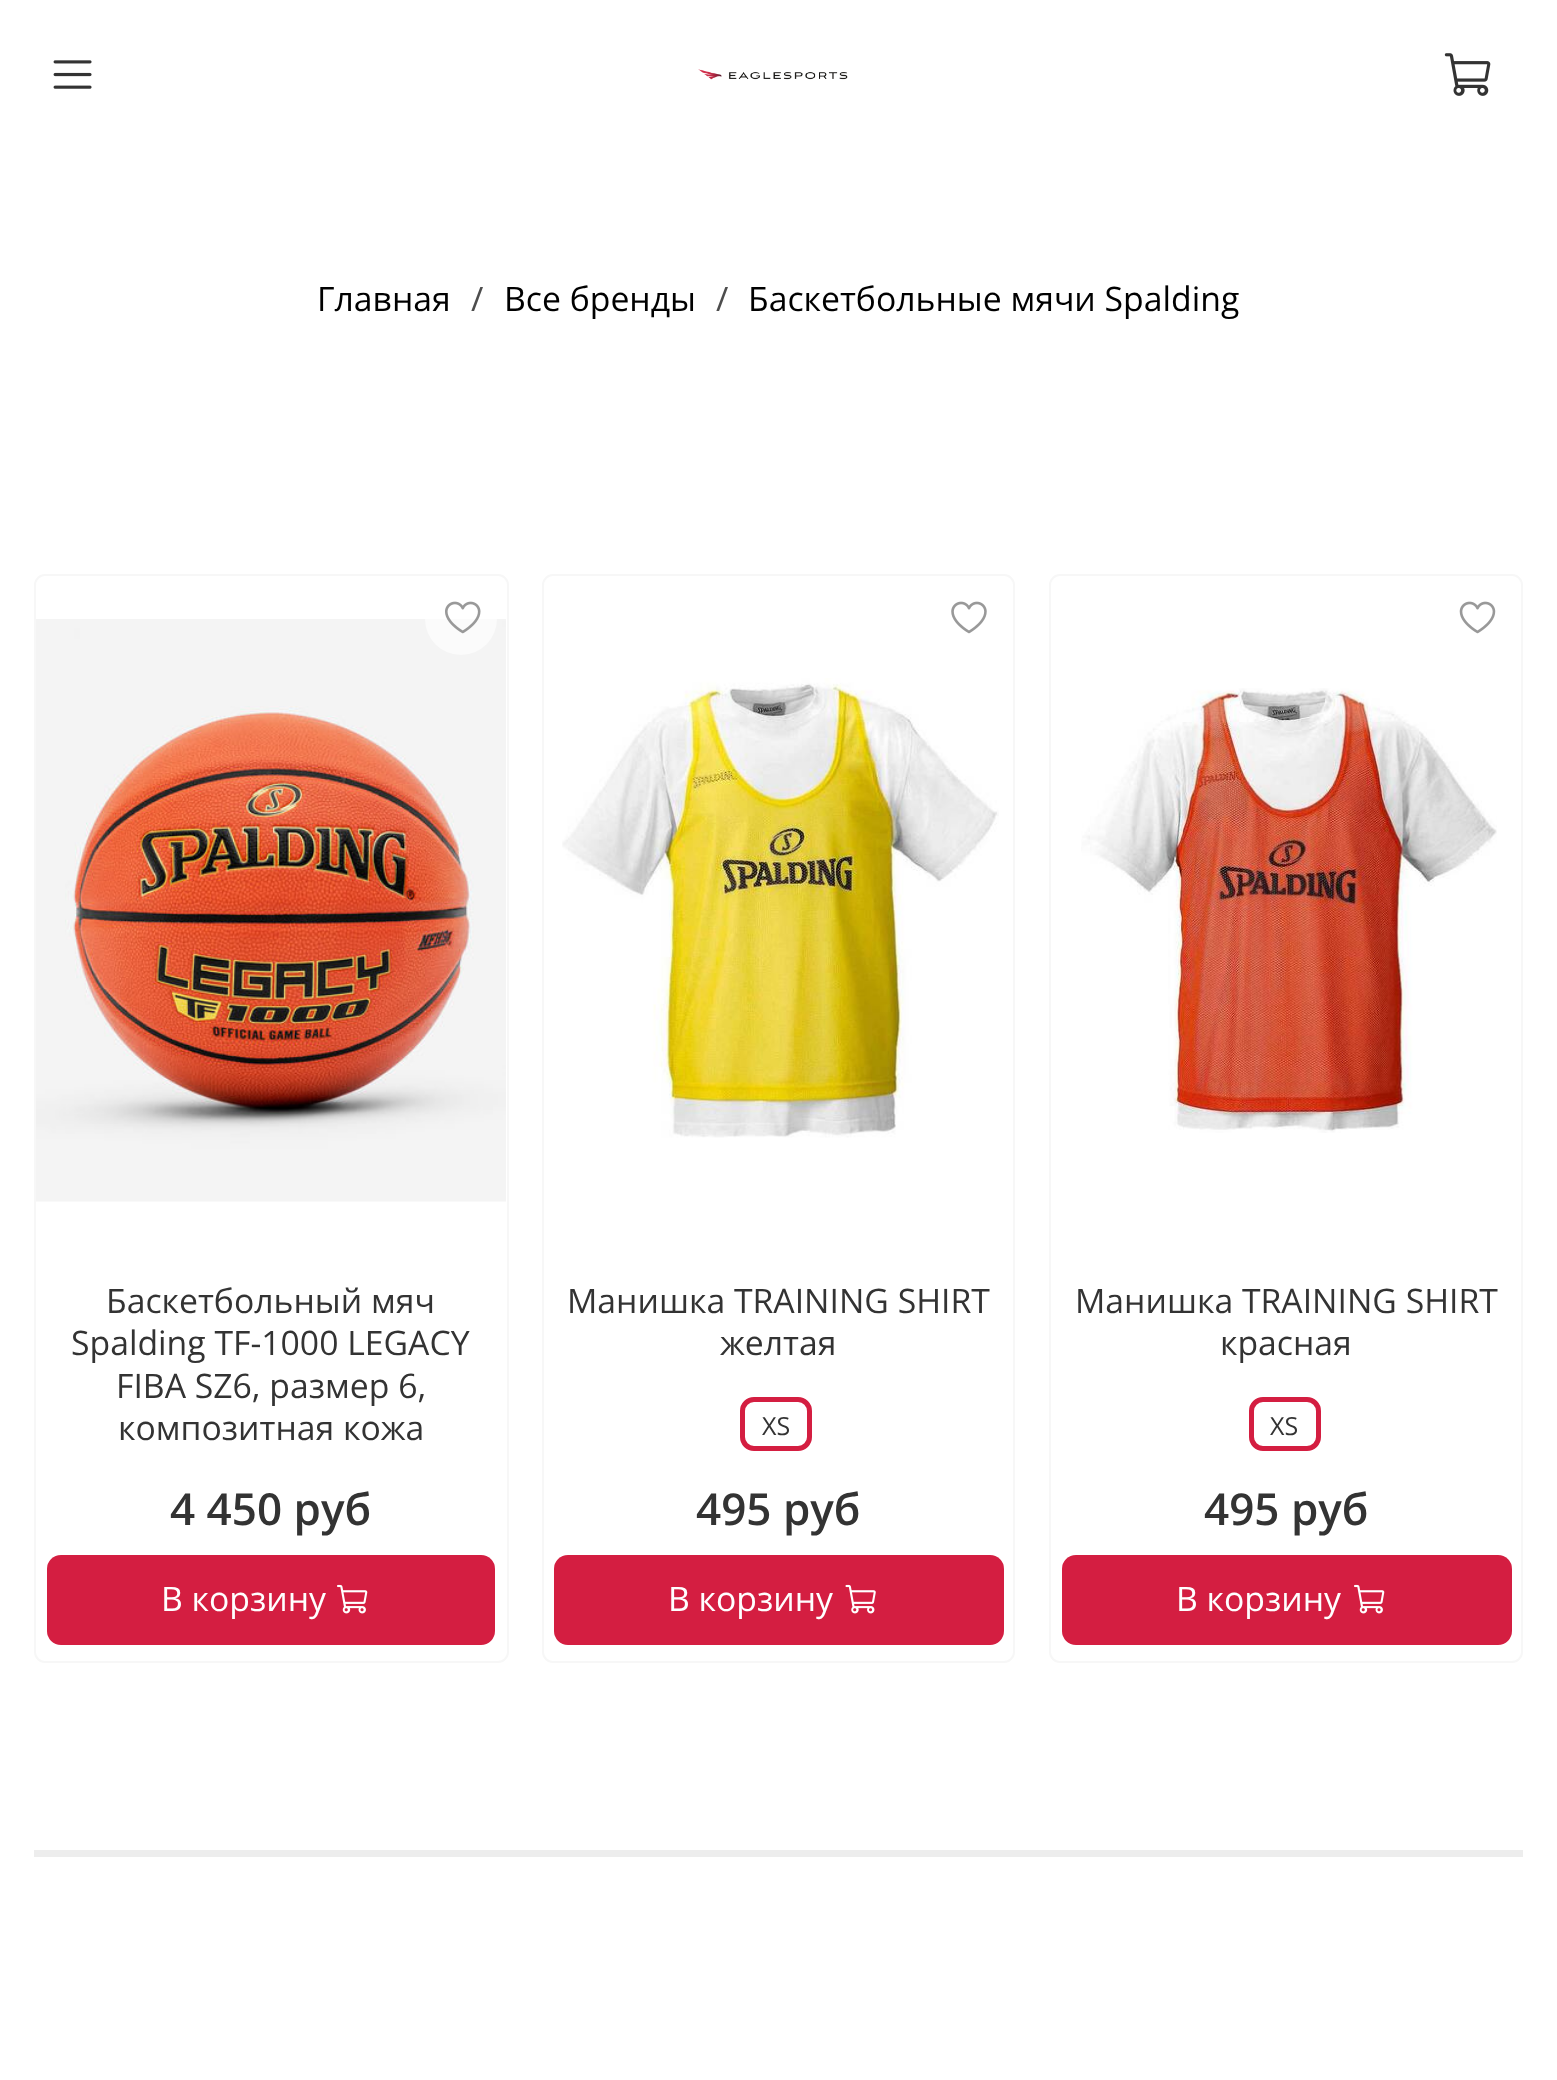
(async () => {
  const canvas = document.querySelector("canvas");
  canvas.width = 1557;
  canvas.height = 2080;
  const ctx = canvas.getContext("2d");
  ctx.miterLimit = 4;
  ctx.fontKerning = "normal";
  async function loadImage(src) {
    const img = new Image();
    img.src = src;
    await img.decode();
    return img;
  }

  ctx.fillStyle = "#ffffff";
  ctx.fillRect(0, 0, 1557, 2080);
  ctx.drawImage(await loadImage("img/1.png"), 53, 60, 39, 29);
  ctx.drawImage(await loadImage("img/2.png"), 698, 69, 150, 11);
  ctx.drawImage(await loadImage("img/3.png"), 1444, 53, 47, 43);
  ctx.beginPath();
  ctx.roundRect(35, 575, 473, 1087, 10);
  ctx.strokeStyle = "#f7f7f7";
  ctx.lineWidth = 2;
  ctx.stroke();
  ctx.drawImage(await loadImage("img/5.png"), 36, 619, 470, 583);
  ctx.fillStyle = "rgba(255, 255, 255, 0.6)";
  ctx.beginPath();
  ctx.arc(461, 619, 36, 0, Math.PI * 2);
  ctx.fill();
  ctx.drawImage(await loadImage("img/4.png"), 445, 601, 36, 33);
  ctx.fillStyle = "#d41e41";
  ctx.beginPath();
  ctx.roundRect(47, 1555, 448, 90, 14);
  ctx.fill();
  ctx.drawImage(await loadImage("img/6.png"), 337, 1584, 31, 30);
  ctx.beginPath();
  ctx.roundRect(543, 575, 471, 1087, 10);
  ctx.stroke();
  ctx.drawImage(await loadImage("img/7.png"), 951, 601, 36, 33);
  ctx.drawImage(await loadImage("img/8.png"), 562, 678, 437, 460);
  ctx.beginPath();
  ctx.roundRect(742.5, 1399.5, 67, 49, 11.5);
  ctx.strokeStyle = "#d41e41";
  ctx.lineWidth = 5;
  ctx.stroke();
  ctx.beginPath();
  ctx.roundRect(554, 1555, 450, 90, 14);
  ctx.fill();
  ctx.drawImage(await loadImage("img/9.png"), 845, 1584, 31, 30);
  ctx.beginPath();
  ctx.roundRect(1050, 575, 472, 1087, 10);
  ctx.strokeStyle = "#f7f7f7";
  ctx.lineWidth = 2;
  ctx.stroke();
  ctx.drawImage(await loadImage("img/10.png"), 1459, 601, 37, 33);
  ctx.drawImage(await loadImage("img/11.png"), 1081, 688, 416, 445);
  ctx.beginPath();
  ctx.roundRect(1251.5, 1399.5, 67, 49, 11.5);
  ctx.strokeStyle = "#d41e41";
  ctx.lineWidth = 5;
  ctx.stroke();
  ctx.beginPath();
  ctx.roundRect(1062, 1555, 450, 90, 14);
  ctx.fill();
  ctx.drawImage(await loadImage("img/6.png"), 1354, 1584, 31, 30);
  ctx.fillStyle = "#ededed";
  ctx.fillRect(34, 1850, 1489, 7);
  ctx.font = "33.75px Open Sans";
  ctx.fillStyle = "#000000";
  ctx.fillText("Главная", 317, 311);
  ctx.fillStyle = "#4d4d4d";
  ctx.fillText("/", 471, 311);
  ctx.fillStyle = "#000000";
  ctx.fillText("Все бренды", 504, 311);
  ctx.fillStyle = "#4d4d4d";
  ctx.fillText("/", 716, 311);
  ctx.fillStyle = "#000000";
  ctx.fillText("Баскетбольные мячи Spalding", 748, 311);
  ctx.fillStyle = "#333333";
  for (const [text, x, y] of [
    ["Баскетбольный мяч", 106, 1313],
    ["Spalding TF-1000 LEGACY", 71, 1355],
    ["FIBA SZ6, размер 6,", 116, 1398],
    ["композитная кожа", 118, 1440],
  ]) {
    ctx.fillText(text, x, y);
  }
  ctx.font = "600 44px Open Sans";
  ctx.fillText("4 450 руб", 170, 1525);
  ctx.font = "33.75px Open Sans";
  ctx.fillStyle = "#ffffff";
  ctx.fillText("В корзину", 161, 1611);
  ctx.fillStyle = "#333333";
  ctx.fillText("Манишка TRAINING SHIRT", 567, 1313);
  ctx.fillText("желтая", 720, 1355);
  ctx.font = "25px Open Sans";
  ctx.fillText("XS", 762, 1435);
  ctx.font = "600 44px Open Sans";
  ctx.fillText("495 руб", 696, 1525);
  ctx.font = "33.75px Open Sans";
  ctx.fillStyle = "#ffffff";
  ctx.fillText("В корзину", 668, 1611);
  ctx.fillStyle = "#333333";
  ctx.fillText("Манишка TRAINING SHIRT", 1075, 1313);
  ctx.fillText("красная", 1220, 1355);
  ctx.font = "25px Open Sans";
  ctx.fillText("XS", 1270, 1435);
  ctx.font = "600 44px Open Sans";
  ctx.fillText("495 руб", 1204, 1525);
  ctx.font = "33.75px Open Sans";
  ctx.fillStyle = "#ffffff";
  ctx.fillText("В корзину", 1176, 1611);
})();
